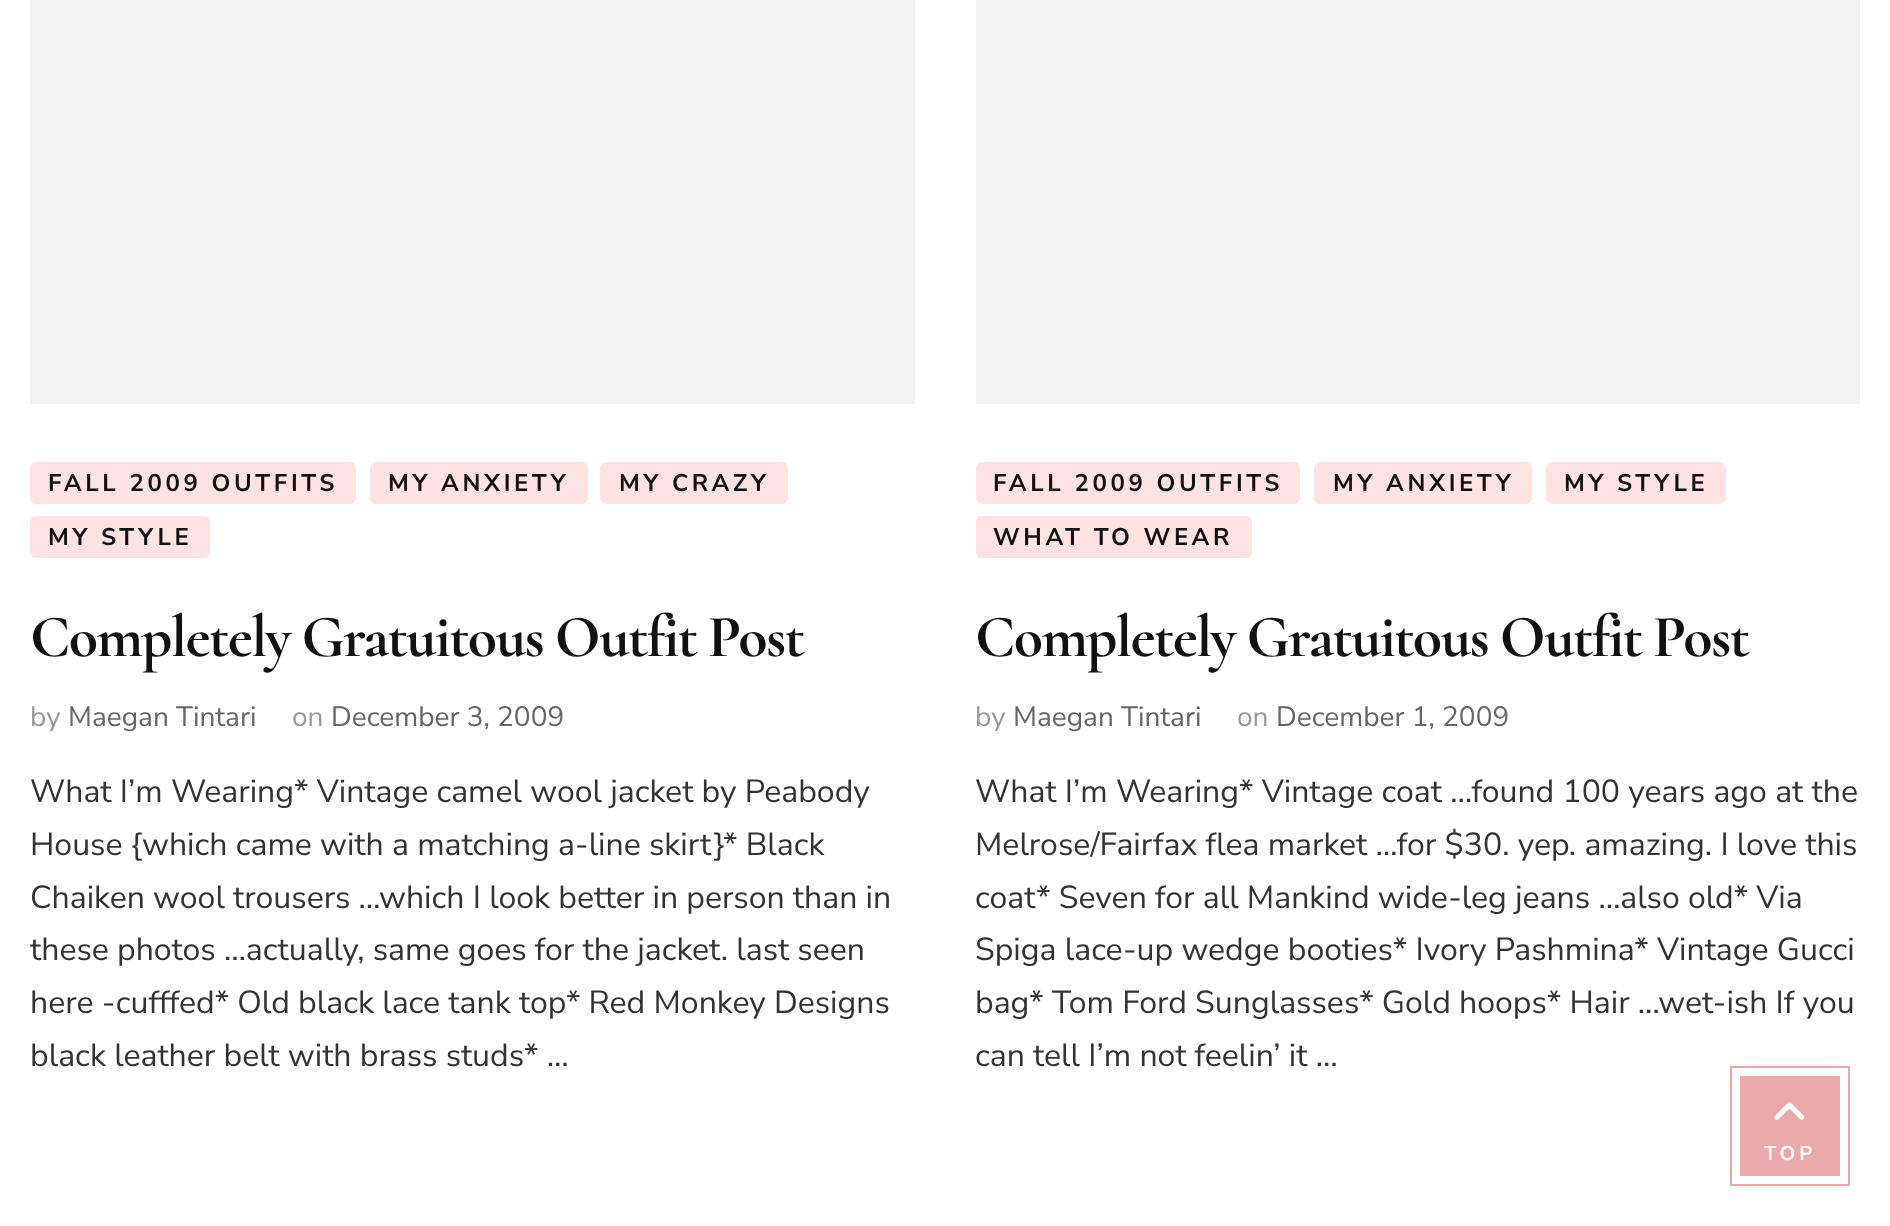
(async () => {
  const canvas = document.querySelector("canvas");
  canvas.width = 1890;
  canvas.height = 1226;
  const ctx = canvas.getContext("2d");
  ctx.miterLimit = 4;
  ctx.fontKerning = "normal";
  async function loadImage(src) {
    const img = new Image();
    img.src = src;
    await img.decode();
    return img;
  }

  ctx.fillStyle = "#ffffff";
  ctx.fillRect(0, 0, 1890, 1226);
  ctx.fillStyle = "#f2f2f2";
  ctx.fillRect(30, 0, 885, 404);
  ctx.fillStyle = "#ffe2e2";
  ctx.beginPath();
  ctx.roundRect(30, 462, 326, 42, 6);
  ctx.fill();
  ctx.beginPath();
  ctx.roundRect(370, 462, 218, 42, 6);
  ctx.fill();
  ctx.beginPath();
  ctx.roundRect(600, 462, 188, 42, 6);
  ctx.fill();
  ctx.beginPath();
  ctx.roundRect(30, 516, 180, 42, 6);
  ctx.fill();
  ctx.fillStyle = "#f2f2f2";
  ctx.fillRect(976, 0, 884, 404);
  ctx.fillStyle = "#ffe2e2";
  ctx.beginPath();
  ctx.roundRect(976, 462, 324, 42, 6);
  ctx.fill();
  ctx.beginPath();
  ctx.roundRect(1314, 462, 218, 42, 6);
  ctx.fill();
  ctx.beginPath();
  ctx.roundRect(1546, 462, 180, 42, 6);
  ctx.fill();
  ctx.beginPath();
  ctx.roundRect(976, 516, 276, 42, 6);
  ctx.fill();
  ctx.fillStyle = "#eaa8a8";
  ctx.fillRect(1730, 1066, 120, 120);
  ctx.drawImage(await loadImage("img/1.png"), 1774, 1102, 31, 18);
  ctx.strokeStyle = "#ffffff";
  ctx.lineWidth = 8;
  ctx.strokeRect(1736, 1072, 108, 108);
  ctx.letterSpacing = "3.6px";
  ctx.font = "bold 24px Nunito Sans";
  ctx.fillStyle = "#111111";
  for (const [text, x, y] of [
    ["FALL 2009 OUTFITS", 48, 491],
    ["MY ANXIETY", 388, 491],
    ["MY CRAZY", 619, 491],
    ["MY STYLE", 48, 545],
  ]) {
    ctx.fillText(text, x, y);
  }
  ctx.letterSpacing = "-1.5px";
  ctx.wordSpacing = "-1px";
  ctx.font = "bold 60px Cormorant";
  ctx.fillText("Completely Gratuitous Outfit Post", 30, 656);
  ctx.letterSpacing = "0px";
  ctx.wordSpacing = "0px";
  ctx.font = "28px Nunito Sans";
  ctx.fillStyle = "#999999";
  ctx.fillText("by", 30, 726);
  ctx.fillStyle = "#666666";
  ctx.fillText("Maegan Tintari", 68, 726);
  ctx.fillStyle = "#999999";
  ctx.fillText("on", 292, 726);
  ctx.fillStyle = "#666666";
  ctx.fillText("December 3, 2009", 331, 726);
  ctx.font = "32px Nunito Sans";
  ctx.fillStyle = "#333333";
  for (const [text, x, y] of [
    ["What I’m Wearing* Vintage camel wool jacket by Peabody", 30, 802],
    ["House {which came with a matching a-line skirt}* Black", 30, 855],
    ["Chaiken wool trousers …which I look better in person than in", 30, 908],
    ["these photos …actually, same goes for the jacket. last seen", 30, 960],
    ["here -cufffed* Old black lace tank top* Red Monkey Designs", 30, 1013],
    ["black leather belt with brass studs* …", 30, 1066],
  ]) {
    ctx.fillText(text, x, y);
  }
  ctx.letterSpacing = "3.6px";
  ctx.font = "bold 24px Nunito Sans";
  ctx.fillStyle = "#111111";
  for (const [text, x, y] of [
    ["FALL 2009 OUTFITS", 993, 491],
    ["MY ANXIETY", 1333, 491],
    ["MY STYLE", 1564, 491],
    ["WHAT TO WEAR", 993, 545],
  ]) {
    ctx.fillText(text, x, y);
  }
  ctx.letterSpacing = "-1.5px";
  ctx.wordSpacing = "-1px";
  ctx.font = "bold 60px Cormorant";
  ctx.fillText("Completely Gratuitous Outfit Post", 975, 656);
  ctx.letterSpacing = "0px";
  ctx.wordSpacing = "0px";
  ctx.font = "28px Nunito Sans";
  ctx.fillStyle = "#999999";
  ctx.fillText("by", 975, 726);
  ctx.fillStyle = "#666666";
  ctx.fillText("Maegan Tintari", 1013, 726);
  ctx.fillStyle = "#999999";
  ctx.fillText("on", 1237, 726);
  ctx.fillStyle = "#666666";
  ctx.fillText("December 1, 2009", 1276, 726);
  ctx.font = "32px Nunito Sans";
  ctx.fillStyle = "#333333";
  for (const [text, x, y] of [
    ["What I’m Wearing* Vintage coat …found 100 years ago at the", 975, 802],
    ["Melrose/Fairfax flea market …for $30. yep. amazing. I love this", 975, 855],
    ["coat* Seven for all Mankind wide-leg jeans …also old* Via", 975, 908],
    ["Spiga lace-up wedge booties* Ivory Pashmina* Vintage Gucci", 975, 960],
    ["bag* Tom Ford Sunglasses* Gold hoops* Hair …wet-ish If you", 975, 1013],
    ["can tell I’m not feelin’ it …", 975, 1066],
  ]) {
    ctx.fillText(text, x, y);
  }
  ctx.letterSpacing = "4px";
  ctx.font = "bold 20px Nunito Sans";
  ctx.fillStyle = "#ffffff";
  ctx.fillText("TOP", 1764, 1160);
})();
